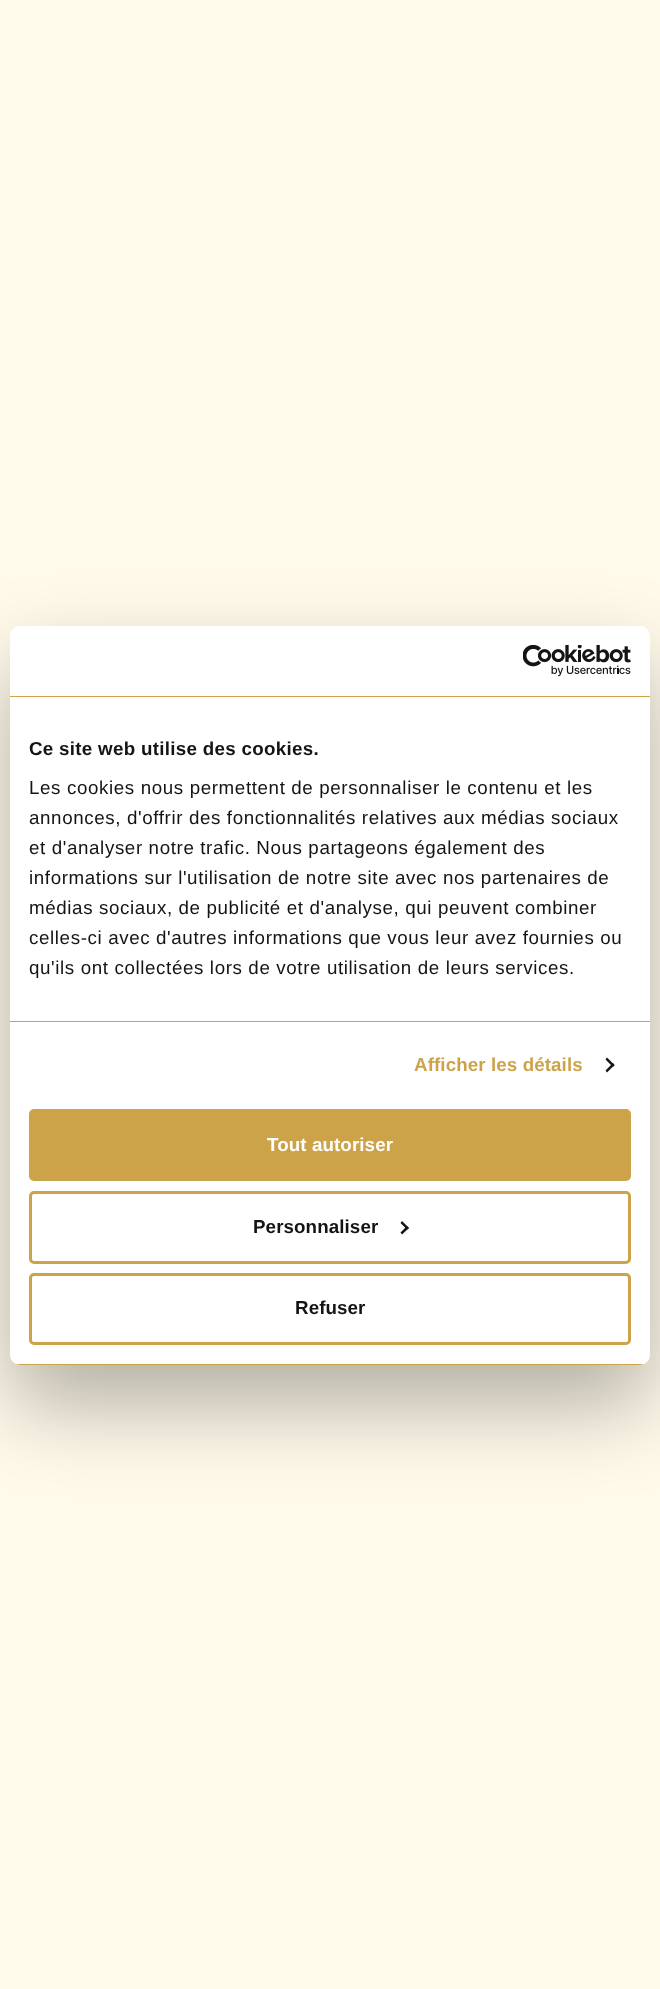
(async () => {
  const canvas = document.querySelector("canvas");
  canvas.width = 660;
  canvas.height = 1989;
  const ctx = canvas.getContext("2d");
  ctx.miterLimit = 4;
  ctx.fontKerning = "normal";
  async function loadImage(src) {
    const img = new Image();
    img.src = src;
    await img.decode();
    return img;
  }
  let path;

  ctx.fillStyle = "#fffaea";
  ctx.fillRect(0, 0, 660, 1989);
  ctx.fillStyle = "rgba(0, 0, 0, 0.3)";
  ctx.filter = "blur(42.5px)";
  ctx.beginPath();
  ctx.roundRect(10, 666, 640, 739, 10);
  ctx.fill();
  ctx.filter = "none";
  ctx.fillStyle = "#ffffff";
  ctx.beginPath();
  ctx.roundRect(10, 626, 640, 739, 10);
  ctx.fill();
  ctx.fillStyle = "#cda349";
  ctx.fillRect(10, 696, 640, 1);
  ctx.drawImage(await loadImage("img/1.png"), 523, 645, 108, 32);
  ctx.fillRect(10, 1021, 640, 1);
  ctx.fillStyle = "#141414";
  path = new Path2D("M607 1057.5L614.5 1065L613 1067L605.5 1059.5Z");
  ctx.fill(path);
  path = new Path2D("M613 1063L614.5 1065L607 1072.5L605.5 1070.5Z");
  ctx.fill(path);
  ctx.save();
  ctx.beginPath();
  ctx.roundRect(10, 626, 640, 739, 10);
  ctx.clip();
  ctx.fillStyle = "#cda349";
  ctx.fillRect(10, 1364, 640, 1);
  ctx.restore();
  ctx.fillStyle = "#cda349";
  ctx.beginPath();
  ctx.roundRect(30.5, 1110.5, 599, 69, 3.5);
  ctx.fill();
  ctx.strokeStyle = "#cda349";
  ctx.lineWidth = 3;
  ctx.stroke();
  ctx.beginPath();
  ctx.roundRect(30.5, 1192.5, 599, 70, 3.5);
  ctx.stroke();
  ctx.fillStyle = "#171614";
  path = new Path2D("M402 1221L409 1228L407 1229.5L400.5 1223Z");
  ctx.fill(path);
  path = new Path2D("M407 1226L409 1228L402 1234.5L400.5 1232.5Z");
  ctx.fill(path);
  ctx.beginPath();
  ctx.roundRect(30.5, 1274.5, 599, 69, 3.5);
  ctx.stroke();
  ctx.letterSpacing = "0.3px";
  ctx.font = "bold 18.75px Liberation Sans";
  ctx.fillStyle = "#141414";
  ctx.fillText("Ce site web utilise des cookies.", 29, 755);
  ctx.letterSpacing = "0.62px";
  ctx.font = "18.75px Liberation Sans";
  for (const [text, x, y] of [
    ["Les cookies nous permettent de personnaliser le contenu et les", 29, 794],
    ["annonces, d'offrir des fonctionnalités relatives aux médias sociaux", 29, 824],
    ["et d'analyser notre trafic. Nous partageons également des", 29, 854],
    ["informations sur l'utilisation de notre site avec nos partenaires de", 29, 884],
    ["médias sociaux, de publicité et d'analyse, qui peuvent combiner", 29, 914],
    ["celles-ci avec d'autres informations que vous leur avez fournies ou", 29, 944],
    ["qu'ils ont collectées lors de votre utilisation de leurs services.", 29, 974],
  ]) {
    ctx.fillText(text, x, y);
  }
  ctx.letterSpacing = "0.1px";
  ctx.font = "bold 18.75px Liberation Sans";
  ctx.fillStyle = "#cda349";
  ctx.fillText("Afficher les détails", 414, 1071);
  ctx.fillStyle = "#ffffff";
  ctx.fillText("Tout autoriser", 267, 1151);
  ctx.fillStyle = "#141414";
  ctx.fillText("Personnaliser", 253, 1233);
  ctx.fillText("Refuser", 295, 1314);
})();
